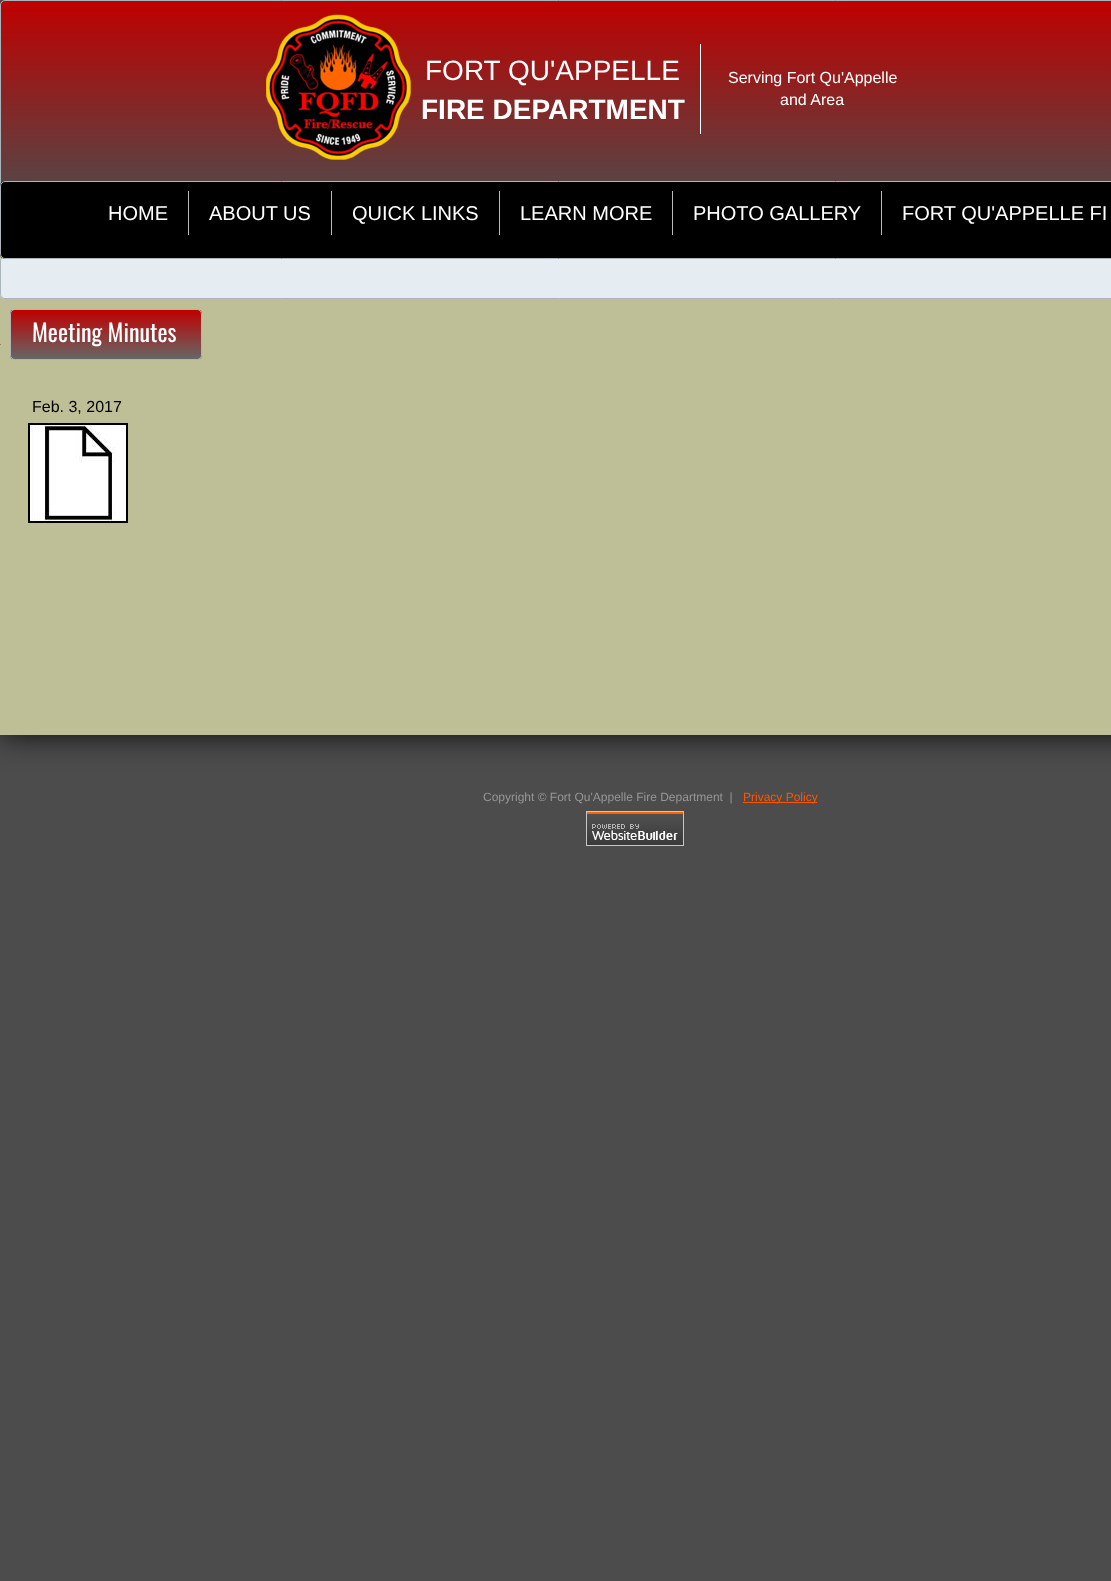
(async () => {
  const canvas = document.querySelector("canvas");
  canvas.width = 1111;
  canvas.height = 1581;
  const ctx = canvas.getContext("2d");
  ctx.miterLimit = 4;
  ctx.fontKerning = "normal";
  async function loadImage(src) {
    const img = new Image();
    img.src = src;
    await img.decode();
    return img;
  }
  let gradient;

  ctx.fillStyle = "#4c4c4c";
  ctx.fillRect(0, 0, 1111, 1581);
  ctx.fillStyle = "rgba(0, 0, 0, 0.8)";
  ctx.filter = "blur(15px)";
  ctx.beginPath();
  ctx.rect(1, 31, 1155, 705);
  ctx.fill();
  ctx.filter = "none";
  ctx.fillStyle = "#bfbf97";
  ctx.fillRect(0, 254, 1111, 481);
  ctx.save();
  ctx.beginPath();
  ctx.roundRect(0, 0, 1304, 208, 5);
  ctx.clip();
  gradient = ctx.createLinearGradient(652, 1, 652, 207);
  gradient.addColorStop(0, "#bf0000");
  gradient.addColorStop(1, "#4c4c4c");
  ctx.fillStyle = gradient;
  ctx.fillRect(0, 1, 1111, 182);
  ctx.restore();
  ctx.beginPath();
  ctx.roundRect(0.5, 0.5, 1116, 207, 4.5);
  ctx.strokeStyle = "#a9b4bb";
  ctx.stroke();
  ctx.drawImage(await loadImage("img/1.png"), 266, 14, 145, 146);
  ctx.fillStyle = "#ffffff";
  ctx.fillRect(700, 44, 1, 90);
  ctx.fillStyle = "#e5edf2";
  ctx.beginPath();
  ctx.roundRect(0, 256, 1111, 43, [5, 0, 0, 5]);
  ctx.fill();
  ctx.beginPath();
  ctx.roundRect(0.5, 256.5, 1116, 42, 4.5);
  ctx.stroke();
  ctx.fillStyle = "#000000";
  ctx.beginPath();
  ctx.roundRect(0, 181, 1111, 78, [5, 0, 0, 5]);
  ctx.fill();
  ctx.beginPath();
  ctx.roundRect(0.5, 181.5, 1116, 77, 4.5);
  ctx.stroke();
  for (const [x, y, w, h, color] of [
    [188, 191, 1, 44, "#bbbbbb"],
    [331, 191, 1, 44, "#bbbbbb"],
    [499, 191, 1, 44, "#bbbbbb"],
    [672, 191, 1, 44, "#bbbbbb"],
    [881, 191, 1, 44, "#bbbbbb"],
  ]) {
    ctx.fillStyle = color;
    ctx.fillRect(x, y, w, h);
  }
  ctx.save();
  ctx.beginPath();
  ctx.roundRect(10, 309, 192, 51, 5);
  ctx.clip();
  gradient = ctx.createLinearGradient(106, 310, 106, 359);
  gradient.addColorStop(0, "#bf0000");
  gradient.addColorStop(1, "#666666");
  ctx.fillStyle = gradient;
  ctx.fillRect(10, 310, 192, 49);
  ctx.restore();
  ctx.beginPath();
  ctx.roundRect(10.5, 309.5, 191, 50, 4.5);
  ctx.stroke();
  ctx.fillStyle = "#a38154";
  ctx.fillRect(0, 344, 1, 1);
  ctx.drawImage(await loadImage("img/2.png"), 28, 423, 100, 100);
  ctx.fillStyle = "#ff5400";
  ctx.fillRect(743, 802, 74, 1);
  ctx.drawImage(await loadImage("img/3.png"), 586, 811, 98, 35);
  ctx.font = "28px Liberation Sans";
  ctx.fillStyle = "#ffffff";
  ctx.fillText("FORT QU'APPELLE", 425, 80);
  ctx.font = "bold 28px Liberation Sans";
  ctx.fillText("FIRE DEPARTMENT", 421, 119);
  ctx.font = "16px Liberation Sans";
  ctx.fillText("Serving Fort Qu'Appelle", 728, 83);
  ctx.fillText("and Area", 780, 105);
  ctx.font = "20px Liberation Sans";
  for (const [text, x, y] of [
    ["HOME", 108, 220],
    ["ABOUT US", 209, 220],
    ["QUICK LINKS", 352, 220],
    ["LEARN MORE", 520, 220],
    ["PHOTO GALLERY", 693, 220],
    ["FORT QU'APPELLE FI", 902, 220],
  ]) {
    ctx.fillText(text, x, y);
  }
  ctx.font = "24px Oswald";
  ctx.fillText("Meeting Minutes", 32, 342);
  ctx.font = "16px Liberation Sans";
  ctx.fillStyle = "#000000";
  ctx.fillText("Feb. 3, 2017", 32, 412);
  ctx.font = "12px Liberation Sans";
  ctx.fillStyle = "#969696";
  ctx.fillText("Copyright © Fort Qu'Appelle Fire Department  |", 483, 801);
  ctx.fillStyle = "#ff5400";
  ctx.fillText("Privacy Policy", 743, 801);
})();
